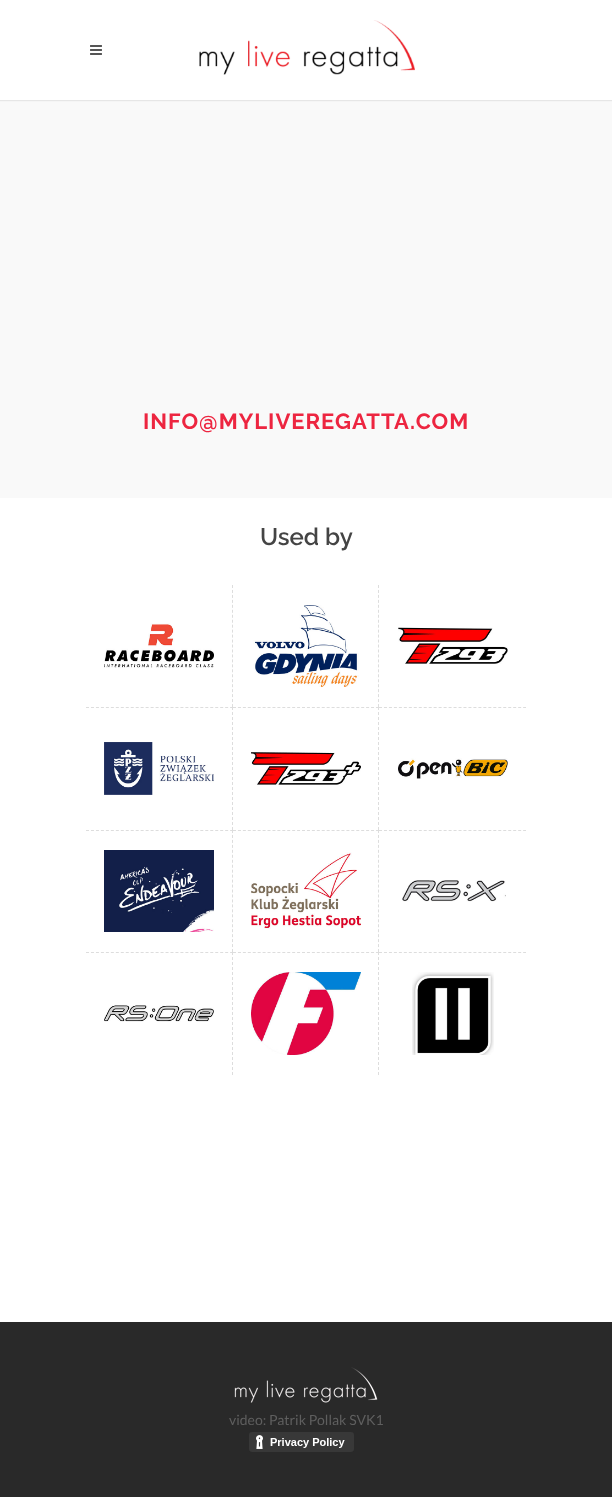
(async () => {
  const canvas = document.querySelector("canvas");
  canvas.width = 612;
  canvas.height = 1497;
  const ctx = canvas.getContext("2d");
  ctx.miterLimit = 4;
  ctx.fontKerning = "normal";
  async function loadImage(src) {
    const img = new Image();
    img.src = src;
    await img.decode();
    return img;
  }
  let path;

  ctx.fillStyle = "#ffffff";
  ctx.fillRect(0, 0, 612, 1497);
  ctx.fillStyle = "#f5f5f5";
  ctx.fillRect(0, 101, 612, 1);
  ctx.fillStyle = "#e6e6e6";
  ctx.fillRect(0, 100, 612, 1);
  ctx.drawImage(await loadImage("img/1.png"), 90, 45, 12, 10);
  ctx.drawImage(await loadImage("img/2.png"), 199, 20, 216, 55);
  ctx.fillStyle = "#f9f9f9";
  ctx.fillRect(0, 102, 612, 396);
  ctx.drawImage(await loadImage("img/3.png"), 104, 623, 110, 45);
  path = new Path2D("M86 707.5H233");
  ctx.strokeStyle = "#dddddd";
  ctx.setLineDash([3, 1.97]);
  ctx.stroke(path);
  path = new Path2D("M232.5 585V707");
  ctx.setLineDash([3, 1.96]);
  ctx.stroke(path);
  ctx.drawImage(await loadImage("img/4.png"), 253, 605, 106, 82);
  path = new Path2D("M233 707.5H379");
  ctx.setLineDash([3, 1.93]);
  ctx.stroke(path);
  path = new Path2D("M378.5 585V707");
  ctx.setLineDash([3, 1.96]);
  ctx.stroke(path);
  ctx.drawImage(await loadImage("img/5.png"), 398, 627, 110, 37);
  path = new Path2D("M379 707.5H526");
  ctx.setLineDash([3, 1.97]);
  ctx.stroke(path);
  ctx.drawImage(await loadImage("img/6.png"), 104, 742, 110, 53);
  path = new Path2D("M86 830.5H233");
  ctx.stroke(path);
  path = new Path2D("M232.5 707V830");
  ctx.setLineDash([3, 2]);
  ctx.stroke(path);
  ctx.drawImage(await loadImage("img/7.png"), 251, 752, 110, 33);
  path = new Path2D("M233 830.5H379");
  ctx.setLineDash([3, 1.93]);
  ctx.stroke(path);
  path = new Path2D("M378.5 707V830");
  ctx.setLineDash([3, 2]);
  ctx.stroke(path);
  ctx.drawImage(await loadImage("img/8.png"), 398, 758, 110, 21);
  path = new Path2D("M379 830.5H526");
  ctx.setLineDash([3, 1.97]);
  ctx.stroke(path);
  ctx.drawImage(await loadImage("img/9.png"), 104, 850, 110, 82);
  path = new Path2D("M86 952.5H233");
  ctx.stroke(path);
  path = new Path2D("M232.5 830V952");
  ctx.setLineDash([3, 1.96]);
  ctx.stroke(path);
  ctx.drawImage(await loadImage("img/10.png"), 251, 852, 110, 77);
  path = new Path2D("M233 952.5H379");
  ctx.setLineDash([3, 1.93]);
  ctx.stroke(path);
  path = new Path2D("M378.5 830V952");
  ctx.setLineDash([3, 1.96]);
  ctx.stroke(path);
  ctx.drawImage(await loadImage("img/11.png"), 402, 880, 104, 22);
  path = new Path2D("M379 952.5H526");
  ctx.setLineDash([3, 1.97]);
  ctx.stroke(path);
  ctx.drawImage(await loadImage("img/12.png"), 104, 1005, 110, 17);
  path = new Path2D("M232.5 952V1075");
  ctx.setLineDash([3, 2]);
  ctx.stroke(path);
  ctx.drawImage(await loadImage("img/13.png"), 251, 972, 110, 83);
  path = new Path2D("M378.5 952V1075");
  ctx.stroke(path);
  ctx.drawImage(await loadImage("img/14.png"), 412, 972, 82, 83);
  ctx.fillStyle = "#292929";
  ctx.fillRect(0, 1322, 612, 175);
  ctx.drawImage(await loadImage("img/15.png"), 234, 1367, 144, 36);
  ctx.drawImage(await loadImage("img/16.png"), 249, 1432, 105, 20);
  ctx.letterSpacing = "1px";
  ctx.font = "bold 22px Raleway";
  ctx.fillStyle = "#ed2540";
  ctx.fillText("INFO@MYLIVEREGATTA.COM", 143, 429);
  ctx.letterSpacing = "0px";
  ctx.font = "600 24px Raleway";
  ctx.fillStyle = "#444444";
  ctx.fillText("Used by", 260, 545);
  ctx.font = "14px Lato";
  ctx.fillStyle = "#5f5f5f";
  ctx.fillText("video: Patrik Pollak SVK1", 229, 1425);
})();
